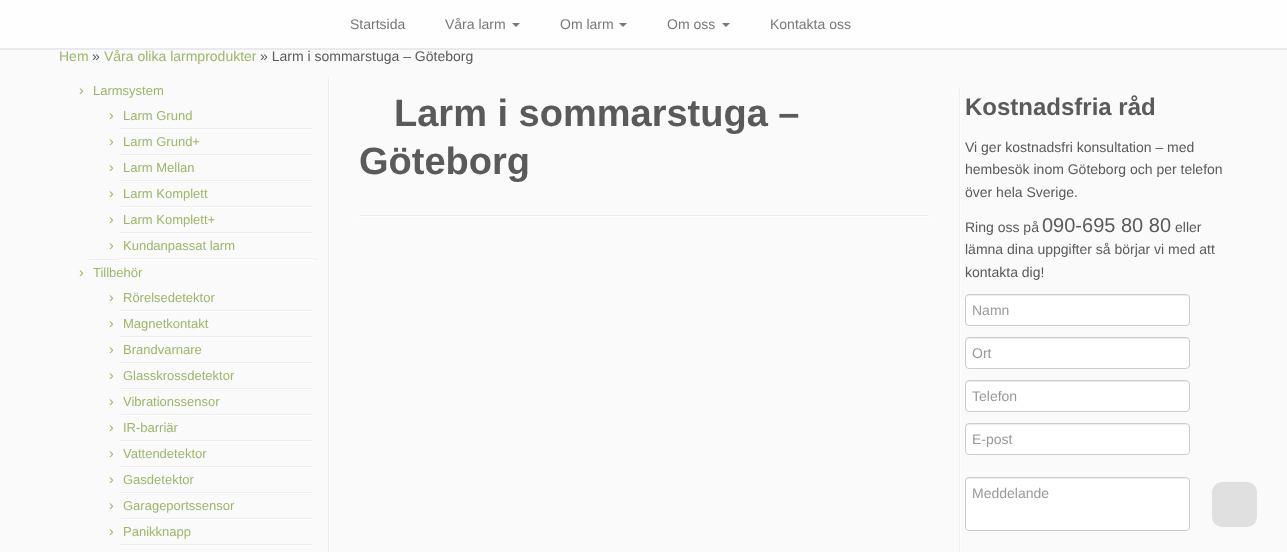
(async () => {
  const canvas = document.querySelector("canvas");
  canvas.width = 1287;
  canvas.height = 552;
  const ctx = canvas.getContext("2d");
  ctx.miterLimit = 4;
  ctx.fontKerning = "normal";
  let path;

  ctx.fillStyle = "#fafafa";
  ctx.fillRect(0, 0, 1287, 552);
  ctx.fillStyle = "rgba(255, 255, 255, 0.8)";
  ctx.fillRect(0, 0, 1287, 48);
  ctx.fillStyle = "#777777";
  path = new Path2D("M512 23H520L516 27Z");
  ctx.fill(path);
  path = new Path2D("M619 23H627L623 27Z");
  ctx.fill(path);
  path = new Path2D("M722 23H730L726 27Z");
  ctx.fill(path);
  for (const [x, y, w, h, color] of [
    [328, 78, 1, 474, "#eeeeee"],
    [89, 259, 229, 1, "#eeeeee"],
    [119, 128, 194, 1, "#eeeeee"],
    [119, 129, 194, 1, "#ffffff"],
    [119, 154, 194, 1, "#eeeeee"],
    [119, 155, 194, 1, "#ffffff"],
    [119, 180, 194, 1, "#eeeeee"],
    [119, 181, 194, 1, "#ffffff"],
    [119, 206, 194, 1, "#eeeeee"],
    [119, 207, 194, 1, "#ffffff"],
    [119, 232, 194, 1, "#eeeeee"],
    [119, 233, 194, 1, "#ffffff"],
    [119, 258, 194, 1, "#eeeeee"],
    [119, 259, 194, 1, "#ffffff"],
    [89, 260, 229, 1, "#ffffff"],
    [119, 310, 194, 1, "#eeeeee"],
    [119, 311, 194, 1, "#ffffff"],
    [119, 336, 194, 1, "#eeeeee"],
    [119, 337, 194, 1, "#ffffff"],
    [119, 362, 194, 1, "#eeeeee"],
    [119, 363, 194, 1, "#ffffff"],
    [119, 388, 194, 1, "#eeeeee"],
    [119, 389, 194, 1, "#ffffff"],
    [119, 414, 194, 1, "#eeeeee"],
    [119, 415, 194, 1, "#ffffff"],
    [119, 440, 194, 1, "#eeeeee"],
    [119, 441, 194, 1, "#ffffff"],
    [119, 466, 194, 1, "#eeeeee"],
    [119, 467, 194, 1, "#ffffff"],
    [119, 492, 194, 1, "#eeeeee"],
    [119, 493, 194, 1, "#ffffff"],
    [119, 518, 194, 1, "#eeeeee"],
    [119, 519, 194, 1, "#ffffff"],
    [119, 544, 194, 1, "#eeeeee"],
    [119, 545, 194, 1, "#ffffff"],
    [329, 78, 1, 474, "#ffffff"],
    [359, 215, 570, 1, "#eeeeee"],
    [359, 216, 570, 1, "#ffffff"],
    [959, 89, 1, 463, "#eeeeee"],
    [960, 89, 1, 463, "#ffffff"],
  ]) {
    ctx.fillStyle = color;
    ctx.fillRect(x, y, w, h);
  }
  ctx.beginPath();
  ctx.roundRect(965, 294, 225, 32, 4);
  ctx.fill();
  ctx.fillStyle = "#ececec";
  path = new Path2D("M969 296H1186C1188 296 1189 297 1189 299V298C1189 296 1188 295 1186 295H969C967 295 966 296 966 298V299C966 297 967 296 969 296Z");
  ctx.fill(path);
  ctx.beginPath();
  ctx.roundRect(965.5, 294.5, 224, 31, 3.5);
  ctx.strokeStyle = "#cccccc";
  ctx.stroke();
  ctx.fillStyle = "#ffffff";
  ctx.beginPath();
  ctx.roundRect(965, 337, 225, 32, 4);
  ctx.fill();
  ctx.fillStyle = "#ececec";
  path = new Path2D("M969 339H1186C1188 339 1189 340 1189 342V341C1189 339 1188 338 1186 338H969C967 338 966 339 966 341V342C966 340 967 339 969 339Z");
  ctx.fill(path);
  ctx.beginPath();
  ctx.roundRect(965.5, 337.5, 224, 31, 3.5);
  ctx.stroke();
  ctx.fillStyle = "#ffffff";
  ctx.beginPath();
  ctx.roundRect(965, 380, 225, 32, 4);
  ctx.fill();
  ctx.fillStyle = "#ececec";
  path = new Path2D("M969 382H1186C1188 382 1189 383 1189 385V384C1189 382 1188 381 1186 381H969C967 381 966 382 966 384V385C966 383 967 382 969 382Z");
  ctx.fill(path);
  ctx.beginPath();
  ctx.roundRect(965.5, 380.5, 224, 31, 3.5);
  ctx.stroke();
  ctx.fillStyle = "#ffffff";
  ctx.beginPath();
  ctx.roundRect(965, 423, 225, 32, 4);
  ctx.fill();
  ctx.fillStyle = "#ececec";
  path = new Path2D("M969 425H1186C1188 425 1189 426 1189 428V427C1189 425 1188 424 1186 424H969C967 424 966 425 966 427V428C966 426 967 425 969 425Z");
  ctx.fill(path);
  ctx.beginPath();
  ctx.roundRect(965.5, 423.5, 224, 31, 3.5);
  ctx.stroke();
  ctx.fillStyle = "#ffffff";
  ctx.beginPath();
  ctx.roundRect(965, 477, 225, 54, 4);
  ctx.fill();
  ctx.fillStyle = "#ececec";
  path = new Path2D("M969 479H1186C1188 479 1189 480 1189 482V481C1189 479 1188 478 1186 478H969C967 478 966 479 966 481V482C966 480 967 479 969 479Z");
  ctx.fill(path);
  ctx.beginPath();
  ctx.roundRect(965.5, 477.5, 224, 53, 3.5);
  ctx.stroke();
  ctx.fillStyle = "#e0e0e0";
  ctx.beginPath();
  ctx.roundRect(1212, 482, 45, 45, 10);
  ctx.fill();
  ctx.font = "14px Liberation Sans";
  ctx.fillStyle = "#777777";
  for (const [text, x, y] of [
    ["Startsida", 350, 29],
    ["Våra larm", 445, 29],
    ["Om larm", 560, 29],
    ["Om oss", 667, 29],
    ["Kontakta oss", 770, 29],
  ]) {
    ctx.fillText(text, x, y);
  }
  ctx.fillStyle = "#9db668";
  ctx.fillText("Hem", 59, 61);
  ctx.fillStyle = "#5a5a5a";
  ctx.fillText("»", 92, 61);
  ctx.fillStyle = "#9db668";
  ctx.fillText("Våra olika larmprodukter", 104, 61);
  ctx.fillStyle = "#e9eaee";
  ctx.fillRect(0, 48, 1287, 2);
  ctx.fillStyle = "#5a5a5a";
  ctx.fillText("» Larm i sommarstuga – Göteborg", 260, 61);
  ctx.fillStyle = "#9db668";
  ctx.fillText("›", 79, 95);
  ctx.font = "13px Liberation Sans";
  ctx.fillText("Larmsystem", 93, 95);
  ctx.font = "14px Liberation Sans";
  ctx.fillText("›", 109, 120);
  ctx.font = "13px Liberation Sans";
  ctx.fillText("Larm Grund", 123, 120);
  ctx.font = "14px Liberation Sans";
  ctx.fillText("›", 109, 146);
  ctx.font = "13px Liberation Sans";
  ctx.fillText("Larm Grund+", 123, 146);
  ctx.font = "14px Liberation Sans";
  ctx.fillText("›", 109, 172);
  ctx.font = "13px Liberation Sans";
  ctx.fillText("Larm Mellan", 123, 172);
  ctx.font = "14px Liberation Sans";
  ctx.fillText("›", 109, 198);
  ctx.font = "13px Liberation Sans";
  ctx.fillText("Larm Komplett", 123, 198);
  ctx.font = "14px Liberation Sans";
  ctx.fillText("›", 109, 224);
  ctx.font = "13px Liberation Sans";
  ctx.fillText("Larm Komplett+", 123, 224);
  ctx.font = "14px Liberation Sans";
  ctx.fillText("›", 109, 250);
  ctx.font = "13px Liberation Sans";
  ctx.fillText("Kundanpassat larm", 123, 250);
  ctx.font = "14px Liberation Sans";
  ctx.fillText("›", 79, 277);
  ctx.font = "13px Liberation Sans";
  ctx.fillText("Tillbehör", 93, 277);
  ctx.font = "14px Liberation Sans";
  ctx.fillText("›", 109, 302);
  ctx.font = "13px Liberation Sans";
  ctx.fillText("Rörelsedetektor", 123, 302);
  ctx.font = "14px Liberation Sans";
  ctx.fillText("›", 109, 328);
  ctx.font = "13px Liberation Sans";
  ctx.fillText("Magnetkontakt", 123, 328);
  ctx.font = "14px Liberation Sans";
  ctx.fillText("›", 109, 354);
  ctx.font = "13px Liberation Sans";
  ctx.fillText("Brandvarnare", 123, 354);
  ctx.font = "14px Liberation Sans";
  ctx.fillText("›", 109, 380);
  ctx.font = "13px Liberation Sans";
  ctx.fillText("Glasskrossdetektor", 123, 380);
  ctx.font = "14px Liberation Sans";
  ctx.fillText("›", 109, 406);
  ctx.font = "13px Liberation Sans";
  ctx.fillText("Vibrationssensor", 123, 406);
  ctx.font = "14px Liberation Sans";
  ctx.fillText("›", 109, 432);
  ctx.font = "13px Liberation Sans";
  ctx.fillText("IR-barriär", 123, 432);
  ctx.font = "14px Liberation Sans";
  ctx.fillText("›", 109, 458);
  ctx.font = "13px Liberation Sans";
  ctx.fillText("Vattendetektor", 123, 458);
  ctx.font = "14px Liberation Sans";
  ctx.fillText("›", 109, 484);
  ctx.font = "13px Liberation Sans";
  ctx.fillText("Gasdetektor", 123, 484);
  ctx.font = "14px Liberation Sans";
  ctx.fillText("›", 109, 510);
  ctx.font = "13px Liberation Sans";
  ctx.fillText("Garageportssensor", 123, 510);
  ctx.font = "14px Liberation Sans";
  ctx.fillText("›", 109, 536);
  ctx.font = "13px Liberation Sans";
  ctx.fillText("Panikknapp", 123, 536);
  ctx.font = "bold 38px Liberation Sans";
  ctx.fillStyle = "#5a5a5a";
  ctx.fillText("Larm i sommarstuga –", 394, 126);
  ctx.fillText("Göteborg", 359, 174);
  ctx.font = "bold 24px Liberation Sans";
  ctx.fillText("Kostnadsfria råd", 965, 115);
  ctx.font = "14px Liberation Sans";
  for (const [text, x, y] of [
    ["Vi ger kostnadsfri konsultation – med", 965, 152],
    ["hembesök inom Göteborg och per telefon", 965, 174],
    ["över hela Sverige.", 965, 197],
    ["Ring oss på", 965, 232],
  ]) {
    ctx.fillText(text, x, y);
  }
  ctx.font = "20px Liberation Sans";
  ctx.fillText("090-695 80 80", 1042, 232);
  ctx.font = "14px Liberation Sans";
  for (const [text, x, y] of [
    ["eller", 1175, 232],
    ["lämna dina uppgifter så börjar vi med att", 965, 254],
    ["kontakta dig!", 965, 277],
  ]) {
    ctx.fillText(text, x, y);
  }
  ctx.fillStyle = "#999999";
  for (const [text, x, y] of [
    ["Namn", 972, 315],
    ["Ort", 972, 358],
    ["Telefon", 972, 401],
    ["E-post", 972, 444],
    ["Meddelande", 972, 498],
  ]) {
    ctx.fillText(text, x, y);
  }
})();
